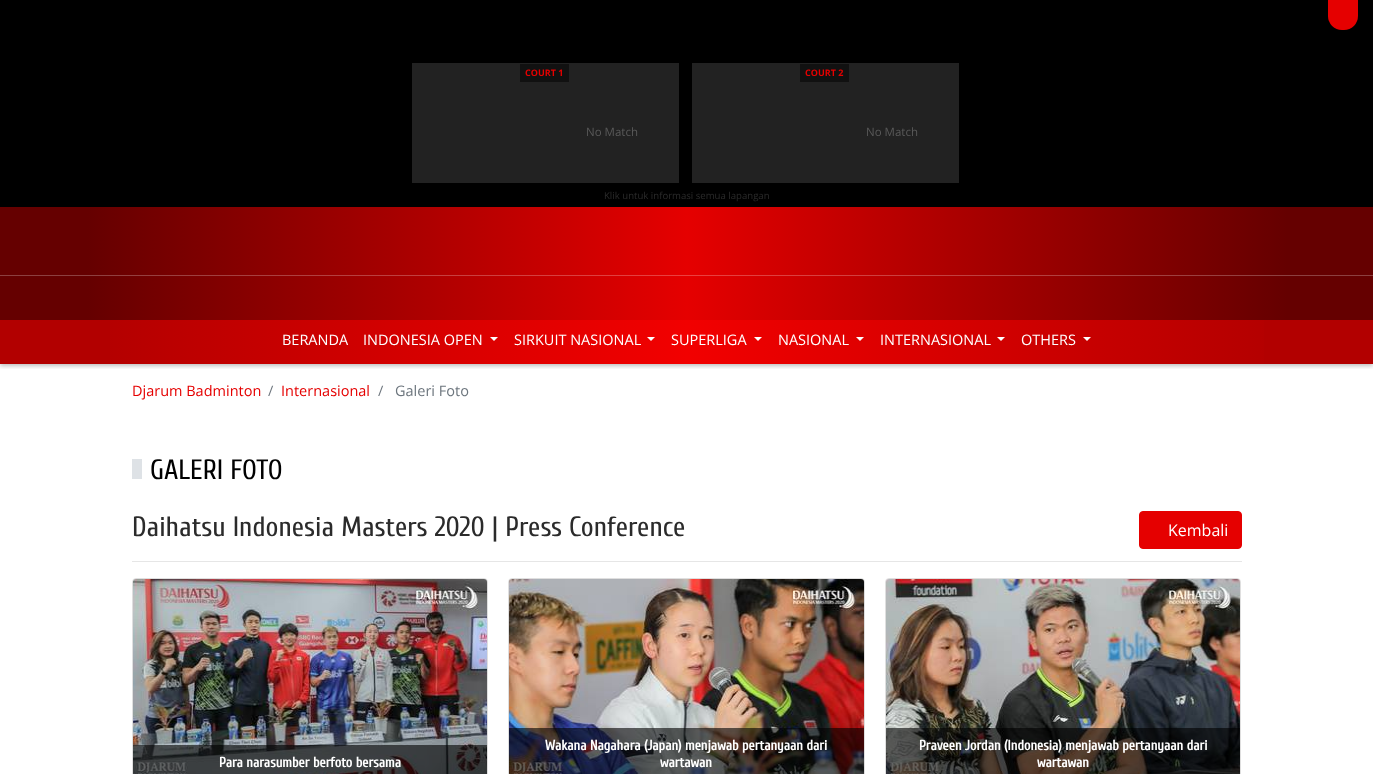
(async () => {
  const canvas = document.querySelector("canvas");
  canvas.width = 1373;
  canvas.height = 774;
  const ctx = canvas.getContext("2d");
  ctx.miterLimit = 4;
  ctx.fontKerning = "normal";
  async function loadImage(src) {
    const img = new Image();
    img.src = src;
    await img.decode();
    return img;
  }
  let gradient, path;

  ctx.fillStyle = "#ffffff";
  ctx.fillRect(0, 0, 1373, 774);
  for (const [x, y, w, h, color] of [
    [0, 207, 1373, 113, "#650000"],
    [0, 320, 1373, 44, "#b20000"],
    [0, 275, 1373, 1, "#8c4040"],
  ]) {
    ctx.fillStyle = color;
    ctx.fillRect(x, y, w, h);
  }
  gradient = ctx.createLinearGradient(87, 182, 1287, 182);
  gradient.addColorStop(0, "#650000");
  gradient.addColorStop(0.5, "#e50000");
  gradient.addColorStop(1, "#650000");
  ctx.fillStyle = gradient;
  ctx.fillRect(87, 207, 1200, 113);
  gradient = ctx.createLinearGradient(87, 182, 1287, 182);
  gradient.addColorStop(0, "#b20000");
  gradient.addColorStop(0.5, "#f20000");
  gradient.addColorStop(1, "#b20000");
  ctx.fillStyle = gradient;
  ctx.fillRect(110, 320, 1154, 44);
  gradient = ctx.createLinearGradient(87, 182, 1287, 182);
  gradient.addColorStop(0, "#8c4040");
  gradient.addColorStop(0.5, "#ec4040");
  gradient.addColorStop(1, "#8c4040");
  ctx.fillStyle = gradient;
  ctx.fillRect(87, 275, 1200, 1);
  ctx.save();
  ctx.beginPath();
  ctx.rect(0, 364, 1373, 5);
  ctx.clip();
  ctx.fillStyle = "rgba(0, 0, 0, 0.25)";
  ctx.filter = "blur(2px)";
  ctx.beginPath();
  ctx.rect(0, 2, 1373, 364);
  ctx.fill();
  ctx.filter = "none";
  ctx.restore();
  ctx.fillStyle = "#000000";
  ctx.fillRect(0, 0, 1373, 207);
  ctx.fillStyle = "#e50000";
  ctx.beginPath();
  ctx.roundRect(1328, 0, 30, 30, [0, 0, 14, 14]);
  ctx.fill();
  for (const [x, y, w, h, color] of [
    [412, 63, 267, 120, "#222222"],
    [520, 64, 49, 18, "#111111"],
    [692, 63, 267, 120, "#222222"],
    [800, 64, 49, 18, "#111111"],
  ]) {
    ctx.fillStyle = color;
    ctx.fillRect(x, y, w, h);
  }
  ctx.fillStyle = "#ffffff";
  path = new Path2D("M490 337H498L494 341Z");
  ctx.fill(path);
  path = new Path2D("M647 337H655L651 341Z");
  ctx.fill(path);
  path = new Path2D("M754 337H762L758 341Z");
  ctx.fill(path);
  path = new Path2D("M856 337H864L860 341Z");
  ctx.fill(path);
  path = new Path2D("M997 337H1005L1001 341Z");
  ctx.fill(path);
  path = new Path2D("M1083 337H1091L1087 341Z");
  ctx.fill(path);
  ctx.fillStyle = "#dee2e6";
  ctx.fillRect(132, 459, 10, 20);
  ctx.fillStyle = "#e50000";
  ctx.beginPath();
  ctx.roundRect(1139.5, 511.5, 102, 37, 3.5);
  ctx.fill();
  ctx.strokeStyle = "#e50000";
  ctx.stroke();
  ctx.fillStyle = "#e6e6e6";
  ctx.fillRect(132, 561, 1110, 1);
  ctx.beginPath();
  ctx.roundRect(132.5, 578.5, 355, 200, 3.5);
  ctx.strokeStyle = "#dfdfdf";
  ctx.stroke();
  ctx.drawImage(await loadImage("img/1.png"), 133, 579, 354, 195);
  ctx.fillStyle = "rgba(0, 0, 0, 0.6)";
  ctx.fillRect(133, 745, 354, 29);
  ctx.beginPath();
  ctx.roundRect(508.5, 578.5, 356, 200, 3.5);
  ctx.stroke();
  ctx.drawImage(await loadImage("img/2.png"), 509, 579, 355, 195);
  ctx.fillRect(509, 728, 355, 46);
  ctx.beginPath();
  ctx.roundRect(885.5, 578.5, 355, 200, 3.5);
  ctx.stroke();
  ctx.drawImage(await loadImage("img/3.png"), 886, 579, 354, 195);
  ctx.fillRect(886, 728, 354, 46);
  ctx.font = "bold 9px Open Sans";
  ctx.fillStyle = "#e50000";
  ctx.fillText("COURT 1", 525, 76);
  ctx.font = "11.5px Open Sans";
  ctx.fillStyle = "#595959";
  ctx.fillText("No Match", 586, 136);
  ctx.font = "bold 9px Open Sans";
  ctx.fillStyle = "#e50000";
  ctx.fillText("COURT 2", 805, 76);
  ctx.font = "11.5px Open Sans";
  ctx.fillStyle = "#595959";
  ctx.fillText("No Match", 866, 136);
  ctx.font = "9.6px Open Sans";
  ctx.fillStyle = "#2b2b2b";
  ctx.fillText("Klik untuk informasi semua lapangan", 604, 199);
  ctx.font = "14.5px Open Sans";
  ctx.fillStyle = "#ffffff";
  for (const [text, x, y] of [
    ["BERANDA", 282, 345],
    ["INDONESIA OPEN", 363, 345],
    ["SIRKUIT NASIONAL", 514, 345],
    ["SUPERLIGA", 671, 345],
    ["NASIONAL", 778, 345],
    ["INTERNASIONAL", 880, 345],
    ["OTHERS", 1021, 345],
  ]) {
    ctx.fillText(text, x, y);
  }
  ctx.fillStyle = "#e50000";
  ctx.fillText("Djarum Badminton", 132, 396);
  ctx.fillStyle = "#6c757d";
  ctx.fillText("/", 268, 396);
  ctx.fillStyle = "#e50000";
  ctx.fillText("Internasional", 281, 396);
  ctx.fillStyle = "#6c757d";
  ctx.fillText("/", 378, 396);
  ctx.fillText("Galeri Foto", 395, 396);
  ctx.font = "28px Cuprum";
  ctx.fillStyle = "#000000";
  ctx.fillText("GALERI FOTO", 150, 479);
  ctx.fillStyle = "#2b2b2b";
  ctx.fillText("Daihatsu Indonesia Masters 2020 | Press Conference", 132, 536);
  ctx.font = "16px Open Sans";
  ctx.fillStyle = "#ffffff";
  ctx.fillText("Kembali", 1168, 536);
  ctx.font = "bold 14px Cuprum";
  for (const [text, x, y] of [
    ["Para narasumber berfoto bersama", 219, 767],
    ["Wakana Nagahara (Japan) menjawab pertanyaan dari", 545, 750],
    ["wartawan", 660, 767],
    ["Praveen Jordan (Indonesia) menjawab pertanyaan dari", 919, 750],
    ["wartawan", 1037, 767],
  ]) {
    ctx.fillText(text, x, y);
  }
})();
